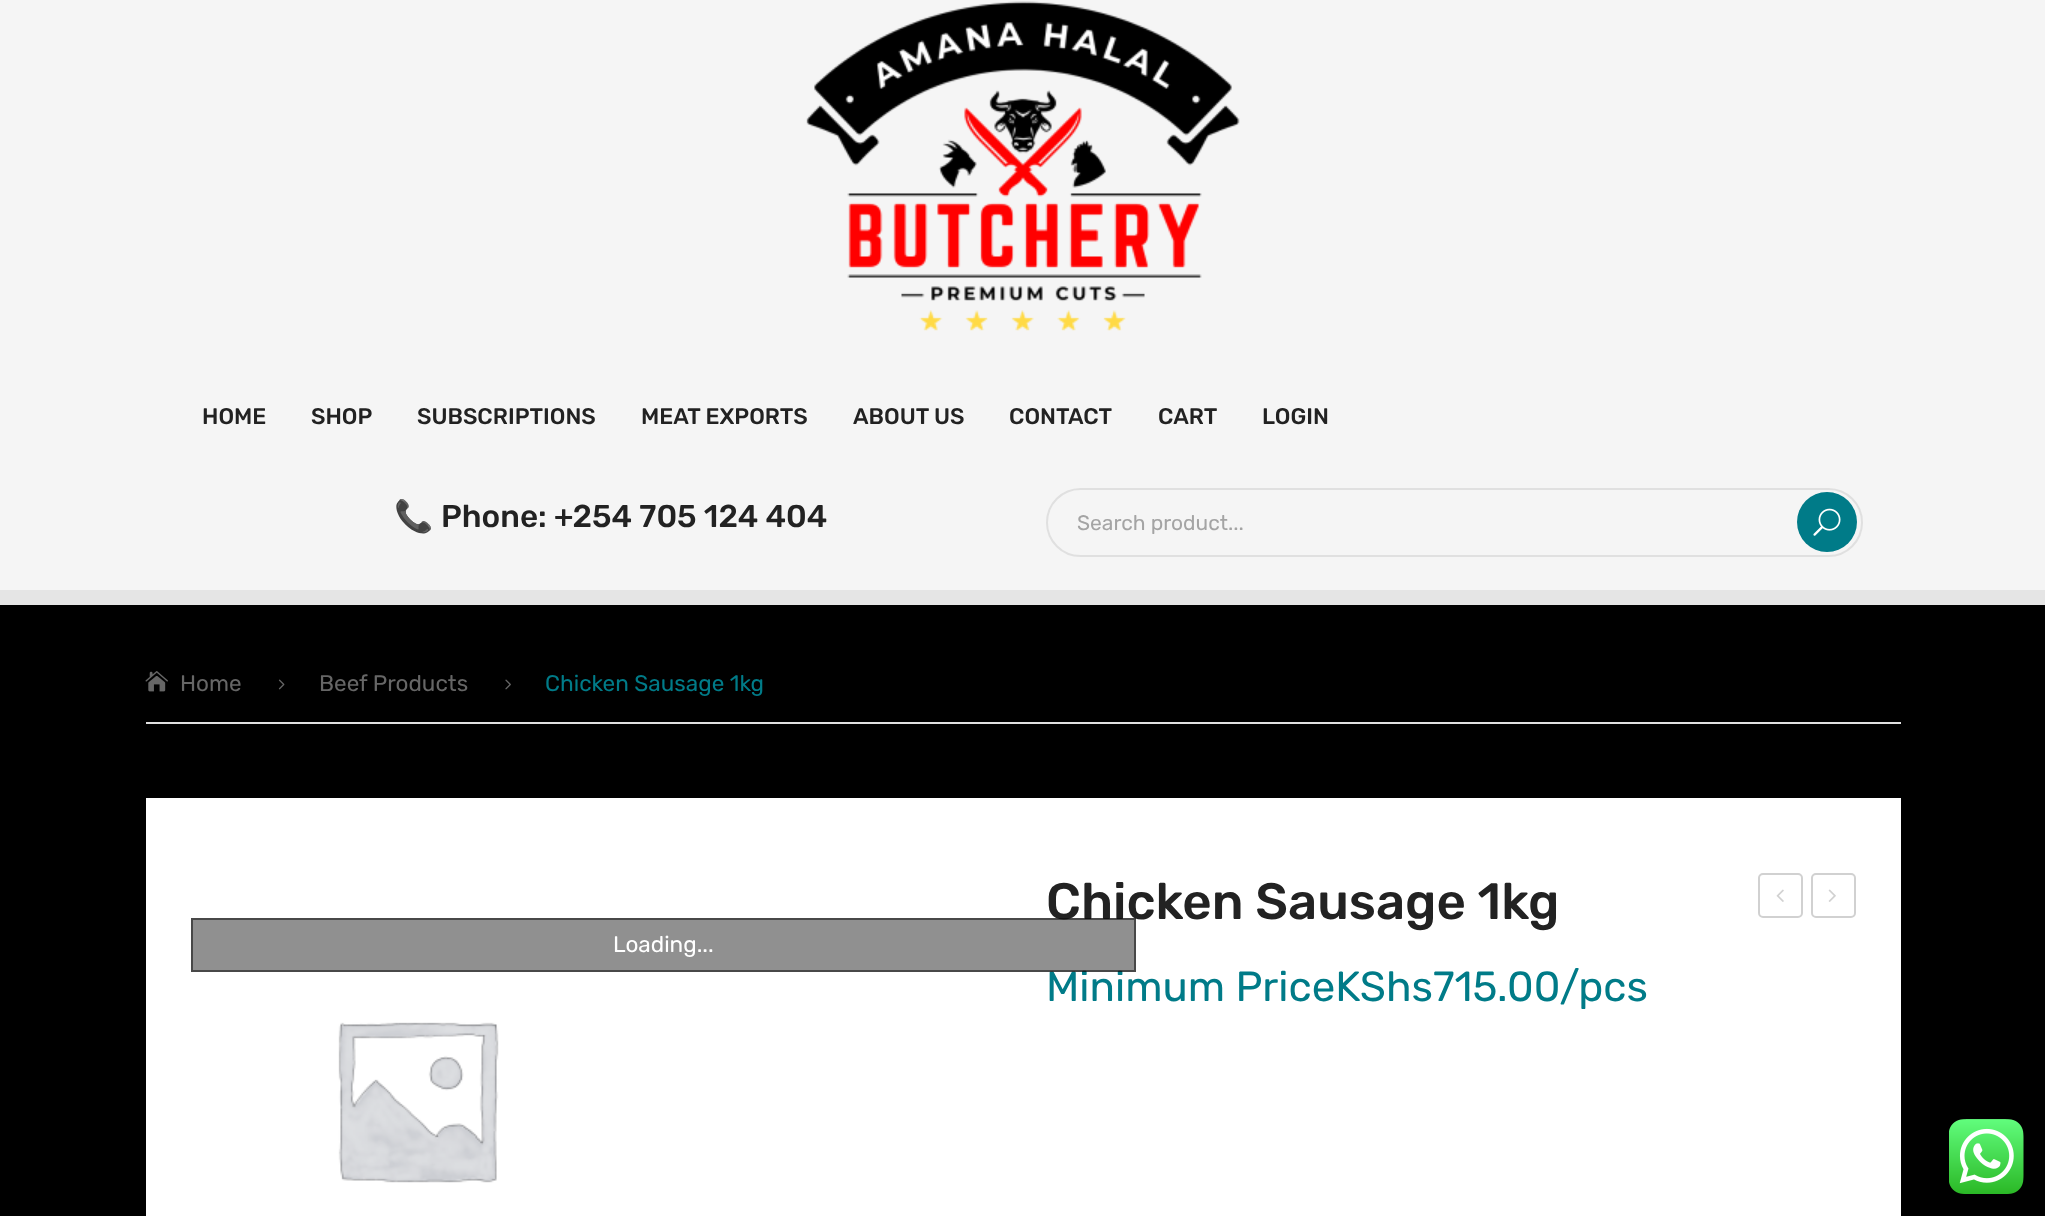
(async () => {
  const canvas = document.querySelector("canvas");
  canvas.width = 2045;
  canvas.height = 1216;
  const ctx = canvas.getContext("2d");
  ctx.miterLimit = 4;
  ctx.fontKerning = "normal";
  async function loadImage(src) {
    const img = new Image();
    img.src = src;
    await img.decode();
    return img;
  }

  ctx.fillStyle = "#000000";
  ctx.fillRect(0, 0, 2045, 1216);
  ctx.fillStyle = "#f5f5f5";
  ctx.fillRect(0, 0, 2045, 590);
  ctx.drawImage(await loadImage("img/1.png"), 806, 1, 434, 330);
  ctx.fillStyle = "#e5e5e5";
  ctx.fillRect(0, 590, 2045, 15);
  ctx.beginPath();
  ctx.roundRect(1047, 489, 815, 67, 33.5);
  ctx.strokeStyle = "#e0e0e0";
  ctx.lineWidth = 2;
  ctx.stroke();
  ctx.fillStyle = "#007b88";
  ctx.beginPath();
  ctx.arc(1827, 522, 30, 0, Math.PI * 2);
  ctx.fill();
  ctx.drawImage(await loadImage("img/2.png"), 1813, 508, 28, 28);
  ctx.fillStyle = "#e0e0e0";
  ctx.fillRect(146, 722, 1755, 2);
  ctx.drawImage(await loadImage("img/3.png"), 145, 671, 23, 21);
  ctx.drawImage(await loadImage("img/4.png"), 278, 679, 7, 11);
  ctx.drawImage(await loadImage("img/5.png"), 505, 679, 6, 11);
  ctx.fillStyle = "#ffffff";
  ctx.fillRect(146, 798, 1755, 418);
  ctx.drawImage(await loadImage("img/6.png"), 338, 1022, 161, 161);
  ctx.beginPath();
  ctx.roundRect(1759, 874, 43, 43, 4);
  ctx.strokeStyle = "#d1d1d1";
  ctx.stroke();
  ctx.drawImage(await loadImage("img/7.png"), 1776, 889, 8, 13);
  ctx.beginPath();
  ctx.roundRect(1812, 874, 43, 43, 4);
  ctx.stroke();
  ctx.drawImage(await loadImage("img/8.png"), 1828, 889, 8, 13);
  ctx.drawImage(await loadImage("img/9.png"), 1949, 1119, 75, 75);
  ctx.font = "500 22.5px Rubik";
  ctx.fillStyle = "#222222";
  for (const [text, x, y] of [
    ["HOME", 202, 424],
    ["SHOP", 311, 424],
    ["SUBSCRIPTIONS", 417, 424],
    ["MEAT EXPORTS", 641, 424],
    ["ABOUT US", 853, 424],
    ["CONTACT", 1009, 424],
    ["CART", 1158, 424],
    ["LOGIN", 1262, 424],
  ]) {
    ctx.fillText(text, x, y);
  }
  ctx.font = "31.5px Noto Color Emoji";
  ctx.fillText("📞", 394, 527);
  ctx.font = "500 31.5px Rubik";
  ctx.fillText("Phone: +254 705 124 404", 441, 527);
  ctx.font = "21px Rubik";
  ctx.fillStyle = "#a4a4a4";
  ctx.fillText("Search product...", 1077, 530);
  ctx.font = "22.5px Rubik";
  ctx.fillStyle = "#666666";
  ctx.fillText("Home", 180, 691);
  ctx.fillText("Beef Products", 319, 691);
  ctx.fillStyle = "#007b88";
  ctx.fillText("Chicken Sausage 1kg", 545, 691);
  ctx.font = "500 51px Rubik";
  ctx.fillStyle = "#222222";
  ctx.fillText("Chicken Sausage 1kg", 1046, 919);
  ctx.font = "42px Rubik";
  ctx.fillStyle = "#007b88";
  ctx.fillText("Minimum PriceKShs715.00/pcs", 1046, 1001);
  ctx.fillStyle = "rgba(34, 34, 34, 0.5)";
  ctx.fillRect(191, 918, 945, 54);
  ctx.strokeStyle = "rgba(0, 0, 0, 0.5)";
  ctx.strokeRect(192, 919, 943, 52);
  ctx.font = "22.5px Rubik";
  ctx.fillStyle = "#ffffff";
  ctx.fillText("Loading...", 613, 952);
})();
